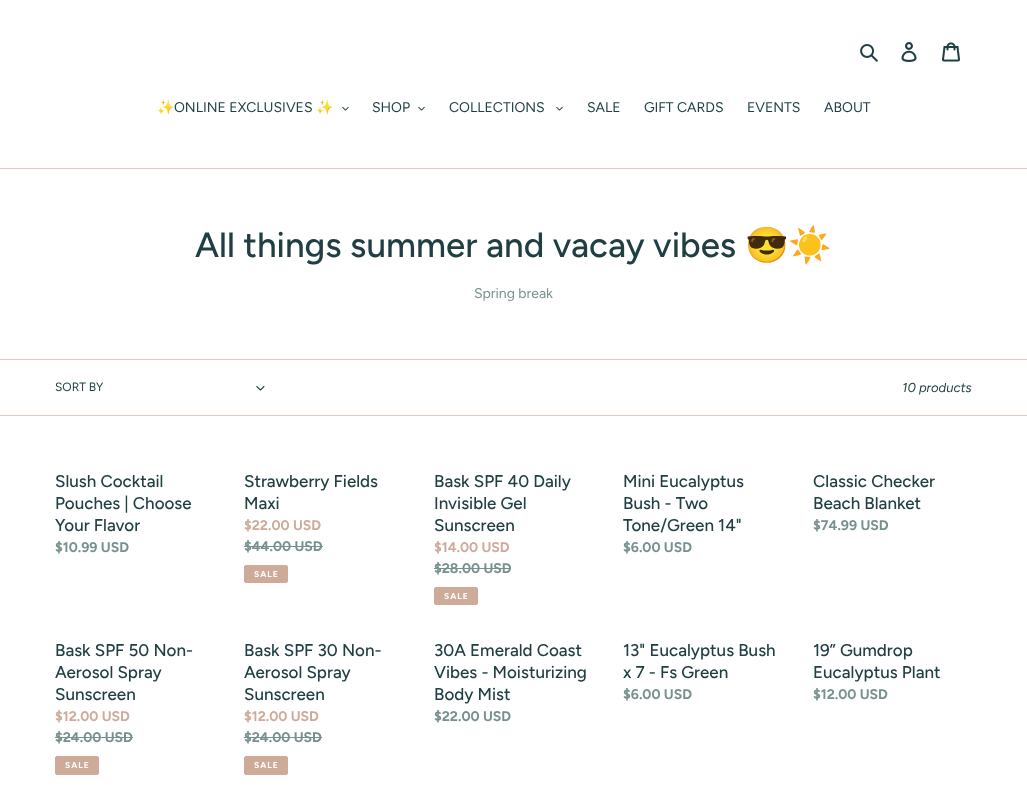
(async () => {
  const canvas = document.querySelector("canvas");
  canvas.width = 1027;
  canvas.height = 803;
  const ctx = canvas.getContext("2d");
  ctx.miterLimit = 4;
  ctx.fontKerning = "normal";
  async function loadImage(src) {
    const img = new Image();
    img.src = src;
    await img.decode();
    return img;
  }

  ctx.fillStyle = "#ffffff";
  ctx.fillRect(0, 0, 1027, 803);
  ctx.drawImage(await loadImage("img/1.png"), 860, 44, 18, 18);
  ctx.drawImage(await loadImage("img/2.png"), 901, 42, 16, 20);
  ctx.drawImage(await loadImage("img/3.png"), 942, 42, 18, 20);
  ctx.fillStyle = "#e4c7be";
  ctx.fillRect(0, 168, 1027, 1);
  ctx.drawImage(await loadImage("img/4.png"), 342, 106, 7, 5);
  ctx.drawImage(await loadImage("img/4.png"), 418, 106, 7, 5);
  ctx.drawImage(await loadImage("img/4.png"), 556, 106, 7, 5);
  ctx.fillRect(0, 359, 1027, 1);
  ctx.fillRect(0, 415, 1027, 1);
  ctx.drawImage(await loadImage("img/5.png"), 256, 386, 9, 5);
  ctx.fillStyle = "#76908e";
  ctx.fillRect(244, 546, 79, 1);
  ctx.fillStyle = "#cdab98";
  ctx.beginPath();
  ctx.roundRect(244.5, 565.5, 43, 17, 1.5);
  ctx.fill();
  ctx.strokeStyle = "#cdab98";
  ctx.stroke();
  ctx.fillStyle = "#76908e";
  ctx.fillRect(434, 568, 77, 1);
  ctx.fillStyle = "#cdab98";
  ctx.beginPath();
  ctx.roundRect(434.5, 587.5, 43, 17, 1.5);
  ctx.fill();
  ctx.stroke();
  ctx.fillStyle = "#76908e";
  ctx.fillRect(55, 737, 78, 1);
  ctx.fillStyle = "#cdab98";
  ctx.beginPath();
  ctx.roundRect(55.5, 756.5, 43, 18, 1.5);
  ctx.fill();
  ctx.stroke();
  ctx.fillStyle = "#76908e";
  ctx.fillRect(244, 737, 78, 1);
  ctx.fillStyle = "#cdab98";
  ctx.beginPath();
  ctx.roundRect(244.5, 756.5, 43, 18, 1.5);
  ctx.fill();
  ctx.stroke();
  ctx.font = "14px Noto Color Emoji";
  ctx.fillStyle = "#203f43";
  ctx.fillText("✨", 157, 112);
  ctx.font = "14px Figtree";
  ctx.fillText("ONLINE EXCLUSIVES", 174, 112);
  ctx.font = "14px Noto Color Emoji";
  ctx.fillText("✨", 316, 112);
  ctx.font = "14px Figtree";
  for (const [text, x, y] of [
    ["SHOP", 372, 112],
    ["COLLECTIONS", 449, 112],
    ["SALE", 587, 112],
    ["GIFT CARDS", 644, 112],
    ["EVENTS", 747, 112],
    ["ABOUT", 824, 112],
  ]) {
    ctx.fillText(text, x, y);
  }
  ctx.font = "500 35px Figtree";
  ctx.fillText("All things summer and vacay vibes", 195, 257);
  ctx.font = "35px Noto Color Emoji";
  ctx.fillText("😎☀️", 745, 257);
  ctx.font = "14px Figtree";
  ctx.fillStyle = "#76908e";
  ctx.fillText("Spring break", 474, 298);
  ctx.font = "12px Figtree";
  ctx.fillStyle = "#203f43";
  ctx.fillText("SORT BY", 55, 391);
  ctx.font = "italic 13px Figtree";
  ctx.fillText("10 products", 902, 392);
  ctx.font = "500 17px Figtree";
  for (const [text, x, y] of [
    ["Slush Cocktail", 55, 487],
    ["Pouches | Choose", 55, 509],
    ["Your Flavor", 55, 531],
  ]) {
    ctx.fillText(text, x, y);
  }
  ctx.font = "bold 14px Figtree";
  ctx.fillStyle = "#76908e";
  ctx.fillText("$10.99 USD", 55, 552);
  ctx.font = "500 17px Figtree";
  ctx.fillStyle = "#203f43";
  ctx.fillText("Strawberry Fields", 244, 487);
  ctx.fillText("Maxi", 244, 509);
  ctx.font = "bold 14px Figtree";
  ctx.fillStyle = "#cdab98";
  ctx.fillText("$22.00 USD", 244, 530);
  ctx.fillStyle = "#76908e";
  ctx.fillText("$44.00 USD", 244, 551);
  ctx.letterSpacing = "1px";
  ctx.font = "bold 8.5px Figtree";
  ctx.fillStyle = "#ffffff";
  ctx.fillText("SALE", 254, 577);
  ctx.letterSpacing = "0px";
  ctx.font = "500 17px Figtree";
  ctx.fillStyle = "#203f43";
  for (const [text, x, y] of [
    ["Bask SPF 40 Daily", 434, 487],
    ["Invisible Gel", 434, 509],
    ["Sunscreen", 434, 531],
  ]) {
    ctx.fillText(text, x, y);
  }
  ctx.font = "bold 14px Figtree";
  ctx.fillStyle = "#cdab98";
  ctx.fillText("$14.00 USD", 434, 552);
  ctx.fillStyle = "#76908e";
  ctx.fillText("$28.00 USD", 434, 573);
  ctx.letterSpacing = "1px";
  ctx.font = "bold 8.5px Figtree";
  ctx.fillStyle = "#ffffff";
  ctx.fillText("SALE", 444, 599);
  ctx.letterSpacing = "0px";
  ctx.font = "500 17px Figtree";
  ctx.fillStyle = "#203f43";
  for (const [text, x, y] of [
    ["Mini Eucalyptus", 623, 487],
    ["Bush - Two", 623, 509],
    ["Tone/Green 14\"", 623, 531],
  ]) {
    ctx.fillText(text, x, y);
  }
  ctx.font = "bold 14px Figtree";
  ctx.fillStyle = "#76908e";
  ctx.fillText("$6.00 USD", 623, 552);
  ctx.font = "500 17px Figtree";
  ctx.fillStyle = "#203f43";
  ctx.fillText("Classic Checker", 813, 487);
  ctx.fillText("Beach Blanket", 813, 509);
  ctx.font = "bold 14px Figtree";
  ctx.fillStyle = "#76908e";
  ctx.fillText("$74.99 USD", 813, 530);
  ctx.font = "500 17px Figtree";
  ctx.fillStyle = "#203f43";
  for (const [text, x, y] of [
    ["Bask SPF 50 Non-", 55, 656],
    ["Aerosol Spray", 55, 678],
    ["Sunscreen", 55, 700],
  ]) {
    ctx.fillText(text, x, y);
  }
  ctx.font = "bold 14px Figtree";
  ctx.fillStyle = "#cdab98";
  ctx.fillText("$12.00 USD", 55, 721);
  ctx.fillStyle = "#76908e";
  ctx.fillText("$24.00 USD", 55, 742);
  ctx.letterSpacing = "1px";
  ctx.font = "bold 8.5px Figtree";
  ctx.fillStyle = "#ffffff";
  ctx.fillText("SALE", 65, 768);
  ctx.letterSpacing = "0px";
  ctx.font = "500 17px Figtree";
  ctx.fillStyle = "#203f43";
  for (const [text, x, y] of [
    ["Bask SPF 30 Non-", 244, 656],
    ["Aerosol Spray", 244, 678],
    ["Sunscreen", 244, 700],
  ]) {
    ctx.fillText(text, x, y);
  }
  ctx.font = "bold 14px Figtree";
  ctx.fillStyle = "#cdab98";
  ctx.fillText("$12.00 USD", 244, 721);
  ctx.fillStyle = "#76908e";
  ctx.fillText("$24.00 USD", 244, 742);
  ctx.letterSpacing = "1px";
  ctx.font = "bold 8.5px Figtree";
  ctx.fillStyle = "#ffffff";
  ctx.fillText("SALE", 254, 768);
  ctx.letterSpacing = "0px";
  ctx.font = "500 17px Figtree";
  ctx.fillStyle = "#203f43";
  for (const [text, x, y] of [
    ["30A Emerald Coast", 434, 656],
    ["Vibes - Moisturizing", 434, 678],
    ["Body Mist", 434, 700],
  ]) {
    ctx.fillText(text, x, y);
  }
  ctx.font = "bold 14px Figtree";
  ctx.fillStyle = "#76908e";
  ctx.fillText("$22.00 USD", 434, 721);
  ctx.font = "500 17px Figtree";
  ctx.fillStyle = "#203f43";
  ctx.fillText("13\" Eucalyptus Bush", 623, 656);
  ctx.fillText("x 7 - Fs Green", 623, 678);
  ctx.font = "bold 14px Figtree";
  ctx.fillStyle = "#76908e";
  ctx.fillText("$6.00 USD", 623, 699);
  ctx.font = "500 17px Figtree";
  ctx.fillStyle = "#203f43";
  ctx.fillText("19” Gumdrop", 813, 656);
  ctx.fillText("Eucalyptus Plant", 813, 678);
  ctx.font = "bold 14px Figtree";
  ctx.fillStyle = "#76908e";
  ctx.fillText("$12.00 USD", 813, 699);
})();
